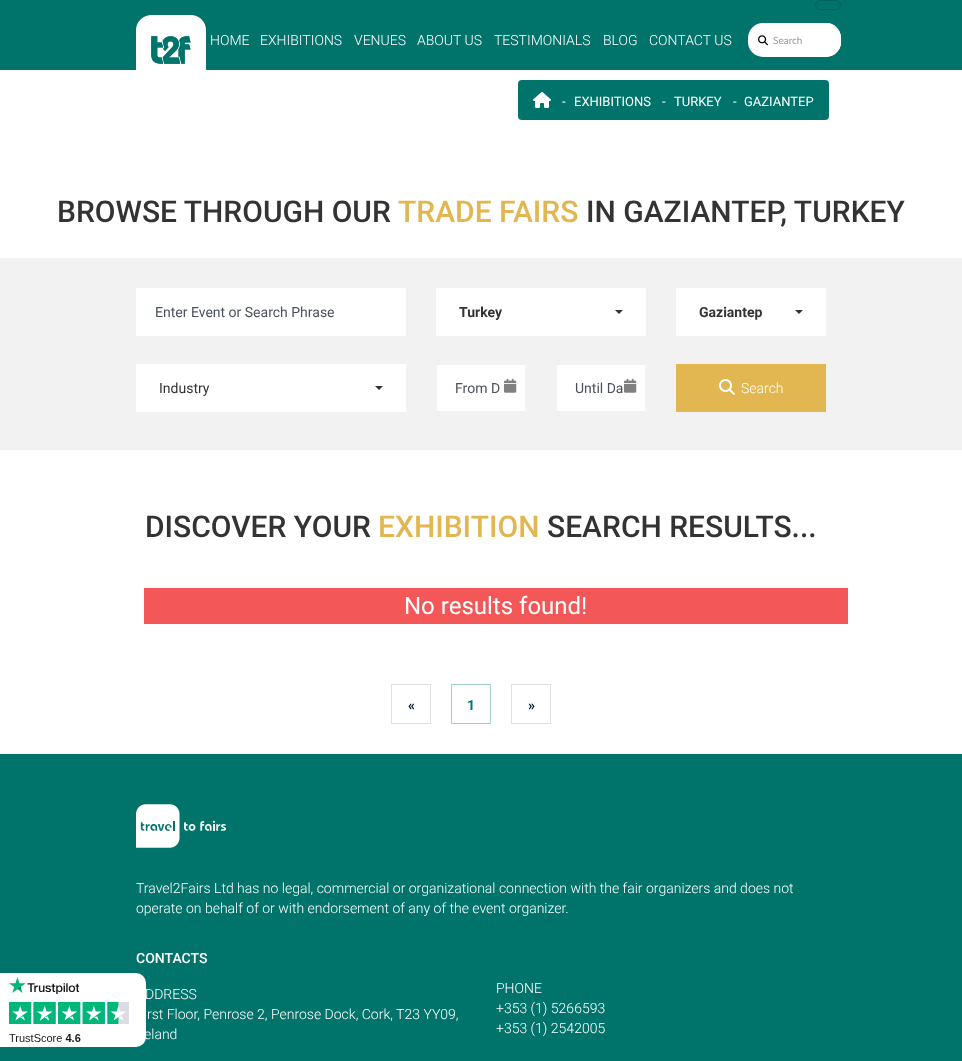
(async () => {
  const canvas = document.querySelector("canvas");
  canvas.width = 962;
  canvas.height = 1061;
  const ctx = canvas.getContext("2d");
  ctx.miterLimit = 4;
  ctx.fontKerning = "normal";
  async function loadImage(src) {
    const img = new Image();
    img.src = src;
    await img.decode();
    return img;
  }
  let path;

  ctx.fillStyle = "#ffffff";
  ctx.fillRect(0, 0, 962, 1061);
  ctx.fillStyle = "#00746b";
  ctx.fillRect(0, 0, 962, 70);
  ctx.beginPath();
  ctx.roundRect(815.5, 0.5, 25, 9, 4.5);
  ctx.strokeStyle = "#00635b";
  ctx.stroke();
  ctx.drawImage(await loadImage("img/1.png"), 136, 15, 70, 55);
  ctx.fillStyle = "#ffffff";
  ctx.beginPath();
  ctx.roundRect(748, 23, 93, 34, 15);
  ctx.fill();
  ctx.drawImage(await loadImage("img/2.png"), 758, 35, 10, 11);
  ctx.beginPath();
  ctx.roundRect(768, 23, 73, 34, 15);
  ctx.fill();
  ctx.fillStyle = "#00746b";
  ctx.beginPath();
  ctx.roundRect(518, 80, 311, 40, 4);
  ctx.fill();
  ctx.drawImage(await loadImage("img/3.png"), 533, 92, 18, 16);
  for (const [x, y, w, h, color] of [
    [0, 258, 962, 192, "#f2f2f2"],
    [136, 288, 270, 48, "#ffffff"],
    [436, 288, 210, 48, "#ffffff"],
  ]) {
    ctx.fillStyle = color;
    ctx.fillRect(x, y, w, h);
  }
  ctx.fillStyle = "#333333";
  path = new Path2D("M615 310H623L619 314Z");
  ctx.fill(path);
  ctx.fillStyle = "#ffffff";
  ctx.fillRect(676, 288, 150, 48);
  ctx.fillStyle = "#333333";
  path = new Path2D("M795 310H803L799 314Z");
  ctx.fill(path);
  ctx.fillStyle = "#ffffff";
  ctx.fillRect(136, 364, 270, 48);
  ctx.fillStyle = "#333333";
  path = new Path2D("M375 386H383L379 390Z");
  ctx.fill(path);
  ctx.fillStyle = "#ffffff";
  ctx.fillRect(437, 365, 88, 46);
  ctx.drawImage(await loadImage("img/4.png"), 504, 378, 13, 15);
  ctx.fillRect(557, 365, 88, 46);
  ctx.drawImage(await loadImage("img/5.png"), 624, 378, 13, 15);
  ctx.fillStyle = "#e2b650";
  ctx.fillRect(676, 364, 150, 48);
  ctx.drawImage(await loadImage("img/6.png"), 719, 379, 16, 16);
  ctx.fillStyle = "#f35757";
  ctx.fillRect(144, 588, 704, 36);
  ctx.strokeStyle = "#e1e1e1";
  ctx.strokeRect(391.5, 684.5, 39, 39);
  ctx.strokeStyle = "#a2d0cc";
  ctx.strokeRect(451.5, 684.5, 39, 39);
  ctx.strokeStyle = "#e1e1e1";
  ctx.strokeRect(511.5, 684.5, 39, 39);
  ctx.fillStyle = "#00746b";
  ctx.fillRect(0, 754, 962, 307);
  ctx.fillStyle = "#ffffff";
  ctx.beginPath();
  ctx.roundRect(0, 973, 146, 74, [0, 10, 10, 0]);
  ctx.fill();
  ctx.drawImage(await loadImage("img/7.png"), 9, 977, 120, 65);
  ctx.drawImage(await loadImage("img/8.png"), 136, 804, 90, 44);
  ctx.font = "300 14px Roboto";
  for (const [text, x, y] of [
    ["HOME", 210, 45],
    ["EXHIBITIONS", 260, 45],
    ["VENUES", 354, 45],
    ["ABOUT US", 417, 45],
    ["TESTIMONIALS", 494, 45],
    ["BLOG", 603, 45],
    ["CONTACT US", 649, 45],
  ]) {
    ctx.fillText(text, x, y);
  }
  ctx.font = "10px Lato";
  ctx.fillStyle = "#999999";
  ctx.fillText("Search", 773, 44);
  ctx.font = "13px Roboto";
  ctx.fillStyle = "#ffffff";
  for (const [text, x, y] of [
    ["-", 562, 106],
    ["EXHIBITIONS", 574, 106],
    ["-", 662, 106],
    ["TURKEY", 674, 106],
    ["-", 733, 106],
    ["GAZIANTEP", 744, 106],
  ]) {
    ctx.fillText(text, x, y);
  }
  ctx.font = "500 30px Roboto";
  ctx.fillStyle = "#333333";
  ctx.fillText("BROWSE THROUGH OUR", 57, 222);
  ctx.fillStyle = "#e2b650";
  ctx.fillText("TRADE FAIRS", 398, 222);
  ctx.fillStyle = "#333333";
  ctx.fillText("IN GAZIANTEP, TURKEY", 586, 222);
  ctx.font = "14px Roboto";
  ctx.fillStyle = "#4a525d";
  ctx.fillText("Enter Event or Search Phrase", 155, 317);
  ctx.font = "bold 14px Roboto";
  ctx.fillStyle = "#333333";
  ctx.fillText("Turkey", 459, 317);
  ctx.fillText("Gaziantep", 699, 317);
  ctx.font = "14px Roboto";
  ctx.fillText("Industry", 159, 393);
  ctx.fillStyle = "#4a525d";
  ctx.fillText("From D", 455, 393);
  ctx.fillText("Until Da", 575, 393);
  ctx.font = "300 14px Roboto";
  ctx.fillStyle = "#ffffff";
  ctx.fillText("Search", 741, 393);
  ctx.font = "500 30px Roboto";
  ctx.fillStyle = "#333333";
  ctx.fillText("DISCOVER YOUR", 145, 537);
  ctx.fillStyle = "#e2b650";
  ctx.fillText("EXHIBITION", 378, 537);
  ctx.fillStyle = "#333333";
  ctx.fillText("SEARCH RESULTS...", 547, 537);
  ctx.font = "24px Roboto";
  ctx.fillStyle = "#ffffff";
  ctx.fillText("No results found!", 404, 614);
  ctx.font = "bold 14px Roboto";
  ctx.fillStyle = "#0b1a31";
  ctx.fillText("«", 408, 710);
  ctx.fillStyle = "#00746b";
  ctx.fillText("1", 467, 710);
  ctx.fillStyle = "#0b1a31";
  ctx.fillText("»", 528, 710);
  ctx.font = "300 14px Roboto";
  ctx.fillStyle = "#ffffff";
  ctx.fillText("Travel2Fairs Ltd has no legal, commercial or organizational connection with the fair organizers and does not", 136, 893);
  ctx.fillText("operate on behalf of or with endorsement of any of the event organizer.", 136, 913);
  ctx.font = "500 14px Roboto";
  ctx.fillText("CONTACTS", 136, 963);
  ctx.font = "300 14px Roboto";
  for (const [text, x, y] of [
    ["DDRESS", 145, 999],
    ["rst Floor, Penrose 2, Penrose Dock, Cork, T23 YY09,", 147, 1019],
    ["eland", 144, 1039],
    ["PHONE", 496, 993],
    ["+353 (1) 5266593", 496, 1013],
    ["+353 (1) 2542005", 496, 1033],
  ]) {
    ctx.fillText(text, x, y);
  }
})();
